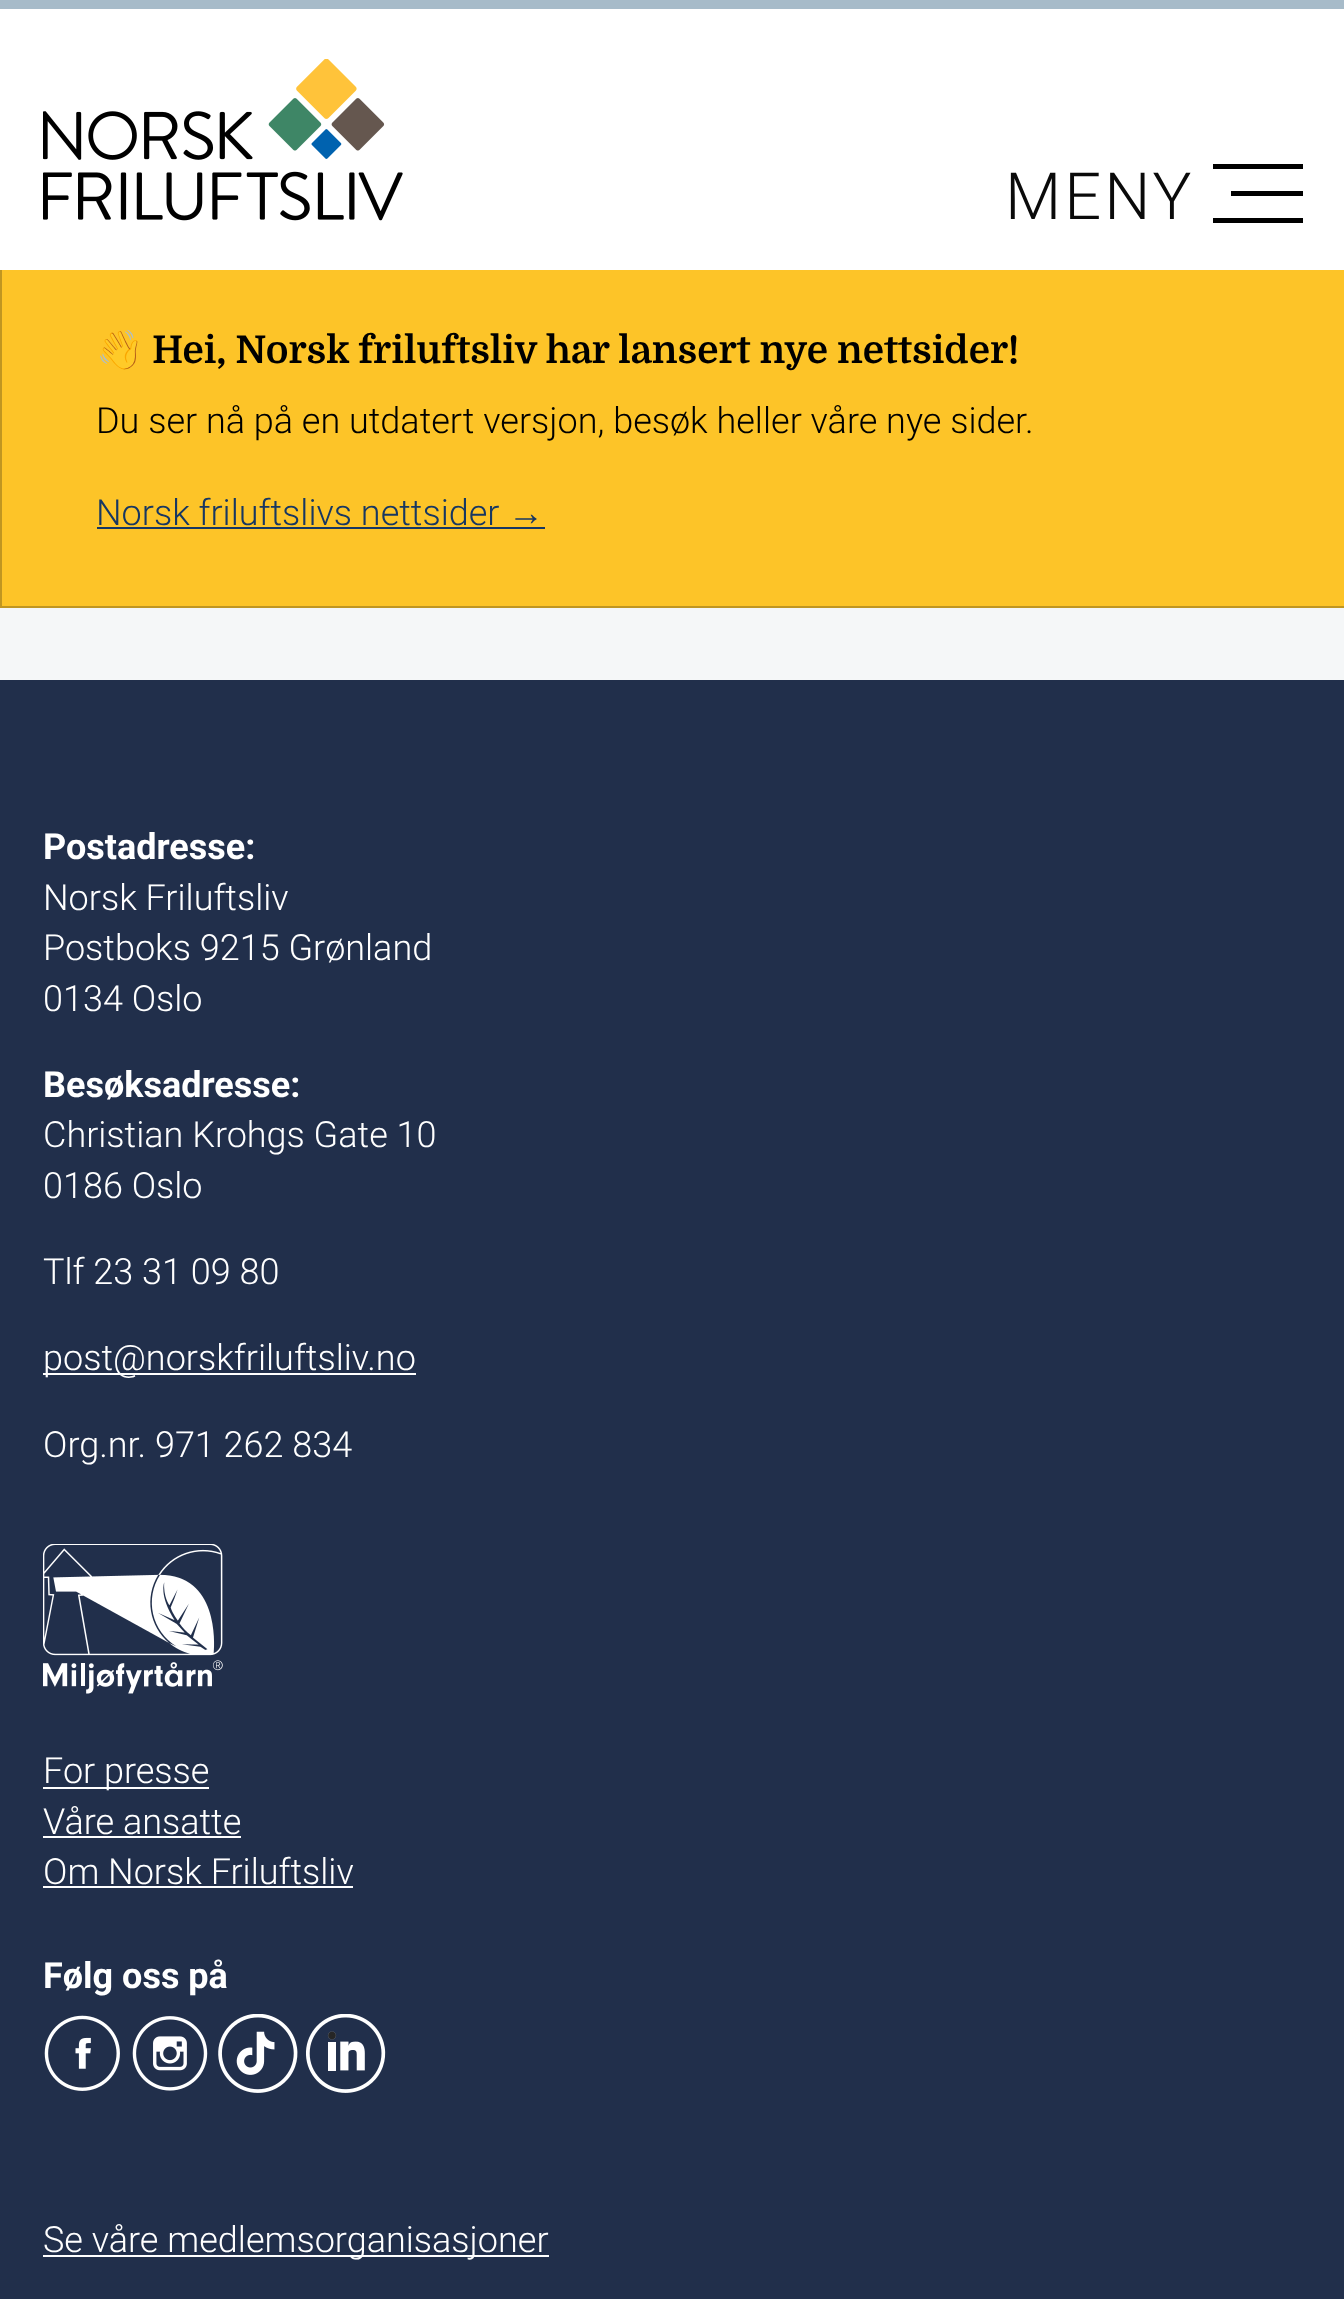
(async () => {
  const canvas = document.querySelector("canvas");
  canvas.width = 1344;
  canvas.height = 2299;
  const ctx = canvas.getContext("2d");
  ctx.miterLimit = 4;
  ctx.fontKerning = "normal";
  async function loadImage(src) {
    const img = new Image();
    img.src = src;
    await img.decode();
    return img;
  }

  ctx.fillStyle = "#f5f7f8";
  ctx.fillRect(0, 0, 1344, 2299);
  ctx.fillStyle = "#fdc428";
  ctx.fillRect(2, 270, 1342, 336);
  ctx.strokeStyle = "#c09621";
  ctx.lineWidth = 2;
  ctx.strokeRect(1, 249, 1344, 358);
  ctx.fillStyle = "#ffffff";
  ctx.fillRect(0, 9, 1344, 261);
  ctx.fillStyle = "#a7bbc9";
  ctx.fillRect(0, 0, 1344, 9);
  ctx.drawImage(await loadImage("img/1.png"), 43, 59, 360, 162);
  for (const [x, y, w, h, color] of [
    [1213, 164, 90, 5, "#000000"],
    [1231, 191, 72, 5, "#000000"],
    [1213, 218, 90, 5, "#000000"],
    [97, 527, 448, 2, "#173762"],
    [0, 680, 1344, 1619, "#212f4b"],
    [43, 1373, 373, 2, "#ffffff"],
  ]) {
    ctx.fillStyle = color;
    ctx.fillRect(x, y, w, h);
  }
  ctx.drawImage(await loadImage("img/2.png"), 43, 1544, 180, 150);
  for (const [x, y, w, h, color] of [
    [43, 1787, 166, 2, "#ffffff"],
    [43, 1836, 198, 2, "#ffffff"],
    [43, 1886, 310, 2, "#ffffff"],
  ]) {
    ctx.fillStyle = color;
    ctx.fillRect(x, y, w, h);
  }
  ctx.drawImage(await loadImage("img/3.png"), 44, 2015, 76, 76);
  ctx.drawImage(await loadImage("img/4.png"), 132, 2016, 76, 75);
  ctx.drawImage(await loadImage("img/5.png"), 218, 2014, 80, 79);
  ctx.drawImage(await loadImage("img/6.png"), 306, 2014, 80, 79);
  ctx.fillRect(43, 2255, 506, 2);
  ctx.letterSpacing = "3px";
  ctx.font = "300 65px Roboto";
  ctx.fillStyle = "#0a0a0a";
  ctx.fillText("MENY", 1005, 219);
  ctx.letterSpacing = "0px";
  ctx.font = "bold 38.25px Noto Color Emoji";
  ctx.fillStyle = "#000000";
  ctx.fillText("👋", 96, 363);
  ctx.font = "bold 38.25px Domine";
  ctx.fillText("Hei, Norsk friluftsliv har lansert nye nettsider!", 152, 363);
  ctx.font = "300 36px Roboto";
  ctx.fillText("Du ser nå på en utdatert versjon, besøk heller våre nye sider.", 96, 433);
  ctx.fillStyle = "#173762";
  ctx.fillText("Norsk friluftslivs nettsider", 96, 525);
  ctx.font = "36px Liberation Sans";
  ctx.fillText("→", 508, 525);
  ctx.font = "bold 36px Roboto";
  ctx.fillStyle = "#ffffff";
  ctx.fillText("Postadresse:", 43, 859);
  ctx.font = "300 36px Roboto";
  for (const [text, x, y] of [
    ["Norsk Friluftsliv", 43, 910],
    ["Postboks 9215 Grønland", 43, 960],
    ["0134 Oslo", 43, 1011],
  ]) {
    ctx.fillText(text, x, y);
  }
  ctx.font = "bold 36px Roboto";
  ctx.fillText("Besøksadresse:", 43, 1097);
  ctx.font = "300 36px Roboto";
  for (const [text, x, y] of [
    ["Christian Krohgs Gate 10", 43, 1147],
    ["0186 Oslo", 43, 1198],
    ["Tlf 23 31 09 80", 43, 1284],
    ["post@norskfriluftsliv.no", 43, 1370],
    ["Org.nr. 971 262 834", 43, 1457],
    ["For presse", 43, 1783],
    ["Våre ansatte", 43, 1834],
    ["Om Norsk Friluftsliv", 43, 1884],
  ]) {
    ctx.fillText(text, x, y);
  }
  ctx.font = "bold 36px Roboto";
  ctx.fillText("Følg oss på", 43, 1988);
  ctx.font = "300 36px Roboto";
  ctx.fillText("Se våre medlemsorganisasjoner", 43, 2252);
})();
